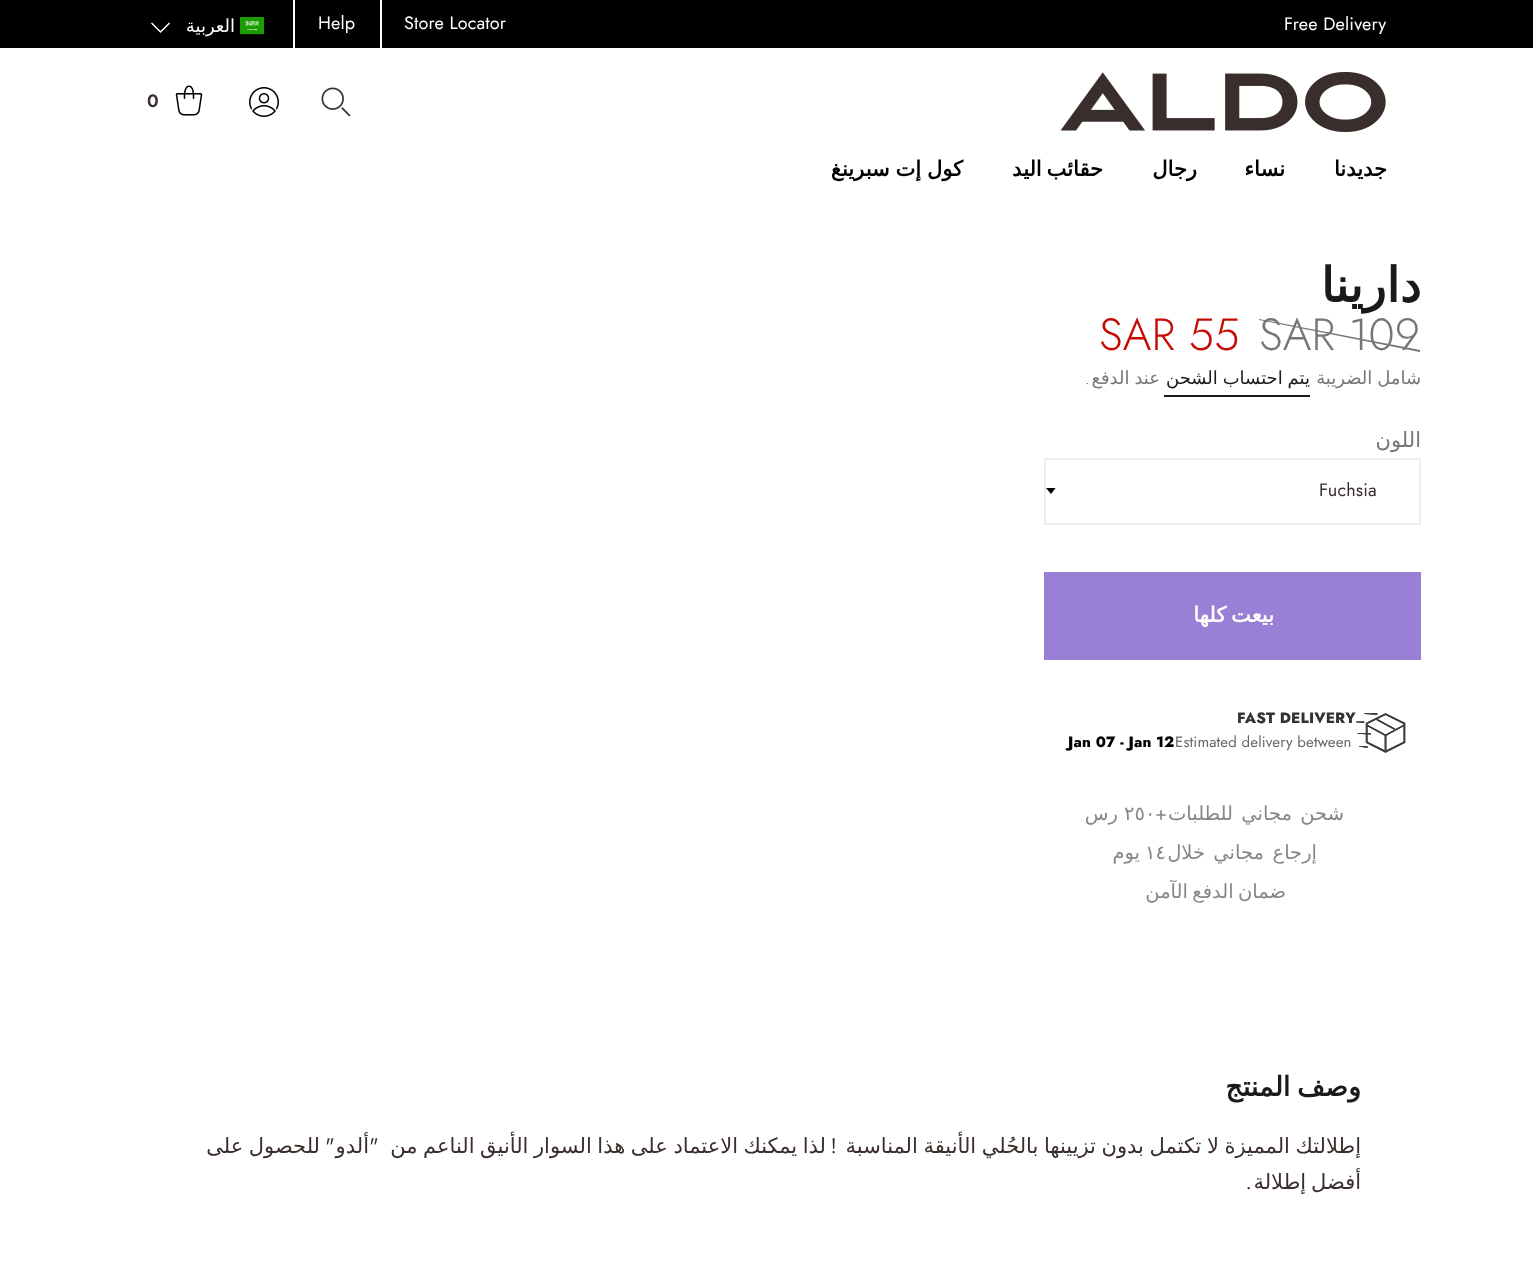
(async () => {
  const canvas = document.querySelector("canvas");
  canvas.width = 1533;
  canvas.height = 1261;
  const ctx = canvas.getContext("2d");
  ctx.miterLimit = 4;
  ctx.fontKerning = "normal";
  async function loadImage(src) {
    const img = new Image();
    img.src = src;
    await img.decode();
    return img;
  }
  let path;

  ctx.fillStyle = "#ffffff";
  ctx.fillRect(0, 0, 1533, 1261);
  for (const [x, y, w, h, color] of [
    [0, 0, 1533, 48, "#000000"],
    [380, 0, 2, 48, "#ffffff"],
    [293, 0, 2, 48, "#ffffff"],
  ]) {
    ctx.fillStyle = color;
    ctx.fillRect(x, y, w, h);
  }
  ctx.drawImage(await loadImage("img/1.png"), 240, 17, 24, 18);
  path = new Path2D("M151.5 23L160.5 32L169.5 23");
  ctx.strokeStyle = "#ffffff";
  ctx.lineWidth = 1.5;
  ctx.stroke(path);
  ctx.drawImage(await loadImage("img/2.png"), 1061, 72, 325, 60);
  ctx.drawImage(await loadImage("img/3.png"), 321, 87, 30, 30);
  ctx.drawImage(await loadImage("img/4.png"), 249, 87, 30, 30);
  ctx.drawImage(await loadImage("img/5.png"), 175, 85, 28, 31);
  ctx.fillStyle = "#767676";
  path = new Path2D("M1259 319L1420 350V352L1259 320Z");
  ctx.fill(path);
  ctx.fillStyle = "#1a1a1a";
  ctx.fillRect(1164, 395, 146, 2);
  ctx.save();
  ctx.beginPath();
  ctx.rect(1046, 488, 12, 7);
  ctx.clip();
  ctx.fillStyle = "#000000";
  path = new Path2D("M1045.5 487.5L1051 494L1056 487.5Z");
  ctx.fill(path);
  ctx.restore();
  ctx.strokeStyle = "#eeeeee";
  ctx.lineWidth = 2;
  ctx.strokeRect(1045, 459, 375, 65);
  ctx.fillStyle = "#9980d6";
  ctx.fillRect(1044, 572, 377, 88);
  ctx.drawImage(await loadImage("img/6.png"), 1356, 713, 50, 40);
  ctx.letterSpacing = "0.15px";
  ctx.font = "18px Jost";
  ctx.fillStyle = "#ffffff";
  ctx.fillText("Store Locator", 404, 29);
  ctx.fillText("Help", 318, 29);
  ctx.direction = "rtl";
  ctx.font = "18px DejaVu Sans";
  ctx.fillText("العربية", 235, 32);
  ctx.direction = "ltr";
  ctx.font = "600 18px Jost";
  ctx.fillStyle = "#3a2e2c";
  ctx.fillText("0", 147, 107);
  ctx.direction = "rtl";
  ctx.font = "bold 21px DejaVu Sans";
  ctx.fillStyle = "#000000";
  for (const [text, x, y] of [
    ["جديدنا", 1387, 176],
    ["نساء", 1285, 176],
    ["رجال", 1197, 176],
  ]) {
    ctx.fillText(text, x, y);
  }
  ctx.wordSpacing = "-2px";
  ctx.fillText("حقائب اليد", 1103, 176);
  ctx.wordSpacing = "-1px";
  ctx.fillText("كول إت سبرينغ", 963, 176);
  ctx.wordSpacing = "0px";
  ctx.direction = "ltr";
  ctx.font = "18px Jost";
  ctx.fillStyle = "#ffffff";
  ctx.fillText("Free Delivery", 1284, 30);
  ctx.direction = "rtl";
  ctx.font = "bold 48px DejaVu Sans";
  ctx.fillStyle = "#1a1a1a";
  ctx.fillText("دارينا", 1421, 302);
  ctx.direction = "ltr";
  ctx.font = "300 45px Jost";
  ctx.fillStyle = "#767676";
  ctx.fillText("SAR 109", 1259, 350);
  ctx.fillStyle = "#c60a00";
  ctx.fillText("SAR 55", 1099, 350);
  ctx.wordSpacing = "-1px";
  ctx.direction = "rtl";
  ctx.font = "18px DejaVu Sans";
  ctx.fillStyle = "#767676";
  ctx.fillText("شامل الضريبة", 1421, 384);
  ctx.fillStyle = "#1a1a1a";
  ctx.fillText("يتم احتساب الشحن", 1310, 384);
  ctx.fillStyle = "#767676";
  ctx.fillText("عند الدفع", 1160, 384);
  ctx.wordSpacing = "0px";
  ctx.font = "300 18px Jost";
  ctx.fillText(".", 1090, 384);
  ctx.font = "21px DejaVu Sans";
  ctx.fillText("اللون", 1421, 447);
  ctx.direction = "ltr";
  ctx.font = "18px Jost";
  ctx.fillStyle = "#3a2e2c";
  ctx.fillText("Fuchsia", 1319, 496);
  ctx.wordSpacing = "-2px";
  ctx.direction = "rtl";
  ctx.font = "bold 21px DejaVu Sans";
  ctx.fillStyle = "#ffffff";
  ctx.fillText("بيعت كلها", 1274, 622);
  ctx.wordSpacing = "0px";
  ctx.direction = "ltr";
  ctx.font = "800 15px Jost";
  ctx.fillStyle = "#333333";
  ctx.fillText("FAST DELIVERY", 1237, 723);
  ctx.font = "15px Jost";
  ctx.fillStyle = "#666666";
  ctx.fillText("Estimated delivery between", 1175, 747);
  ctx.font = "800 15px Jost";
  ctx.fillStyle = "#000000";
  ctx.fillText("Jan 07 - Jan 12", 1068, 747);
  ctx.direction = "rtl";
  ctx.font = "19.5px DejaVu Sans";
  ctx.fillStyle = "#878787";
  for (const [text, x, y] of [
    ["شحن", 1344, 820],
    ["مجاني", 1292, 820],
    ["للطلبات", 1233, 820],
  ]) {
    ctx.fillText(text, x, y);
  }
  ctx.direction = "ltr";
  ctx.font = "19.5px Jost";
  ctx.fillText("+", 1155, 820);
  ctx.font = "19.5px DejaVu Sans";
  ctx.fillText("٢٥٠", 1124, 820);
  ctx.direction = "rtl";
  for (const [text, x, y] of [
    ["رس", 1118, 820],
    ["إرجاع", 1317, 859],
    ["مجاني", 1264, 859],
    ["خلال", 1205, 859],
  ]) {
    ctx.fillText(text, x, y);
  }
  ctx.direction = "ltr";
  ctx.fillText("١٤", 1145, 859);
  ctx.direction = "rtl";
  ctx.fillText("يوم", 1140, 859);
  ctx.wordSpacing = "-2px";
  ctx.fillText("ضمان الدفع الآمن", 1286, 898);
  ctx.font = "bold 27px DejaVu Sans";
  ctx.fillStyle = "#1a1a1a";
  ctx.fillText("وصف المنتج", 1361, 1096);
  ctx.wordSpacing = "-1.25px";
  ctx.font = "21px DejaVu Sans";
  ctx.fillStyle = "#3a2e2c";
  ctx.fillText("إطلالتك المميزة لا تكتمل بدون تزيينها بالحُلي الأنيقة المناسبة", 1361, 1153);
  ctx.fillText("لذا يمكنك الاعتماد على هذا السوار الأنيق الناعم من", 826, 1153);
  ctx.wordSpacing = "0px";
  ctx.font = "21px Jost";
  ctx.fillText("\"", 379, 1153);
  ctx.font = "21px DejaVu Sans";
  ctx.fillText("ألدو", 369, 1153);
  ctx.font = "21px Jost";
  ctx.fillText("\"", 335, 1153);
  ctx.wordSpacing = "-1.25px";
  ctx.font = "21px DejaVu Sans";
  ctx.fillText("للحصول على", 320, 1153);
  ctx.wordSpacing = "0px";
  ctx.font = "21px Jost";
  ctx.fillText("!", 837, 1153);
  ctx.wordSpacing = "-2px";
  ctx.font = "21px DejaVu Sans";
  ctx.fillText("أفضل إطلالة", 1361, 1189);
  ctx.wordSpacing = "0px";
  ctx.font = "21px Jost";
  ctx.fillText(".", 1252, 1189);
})();
